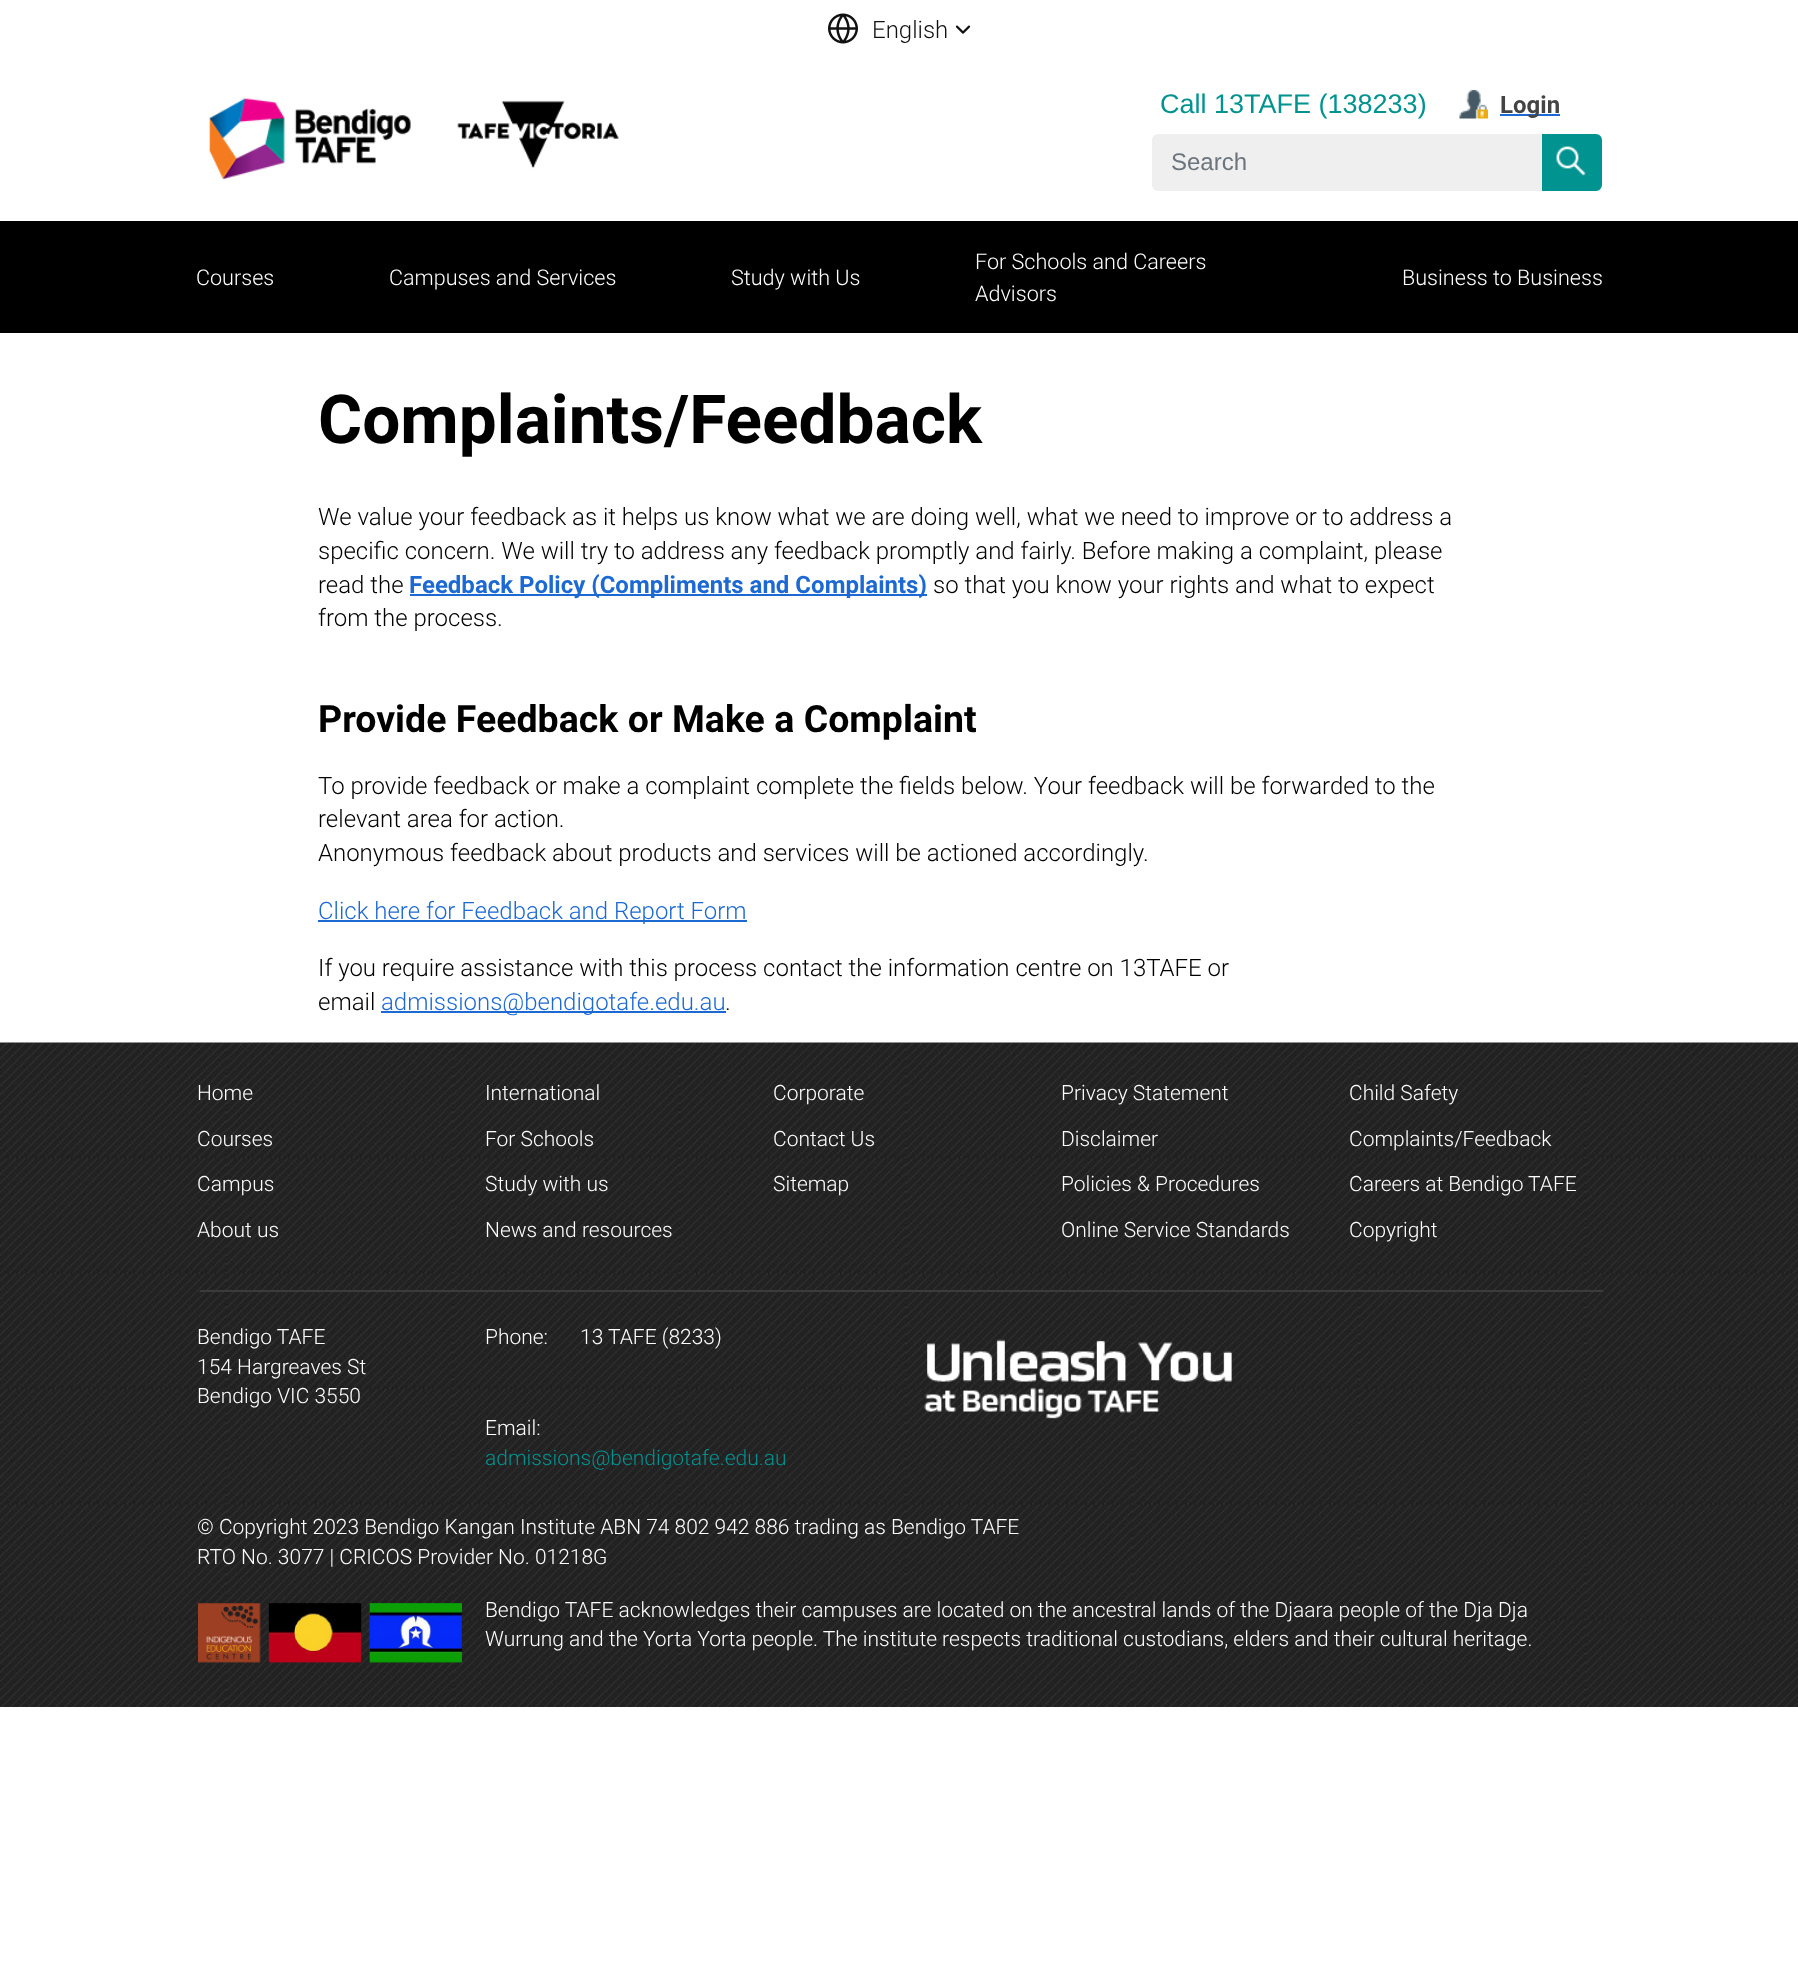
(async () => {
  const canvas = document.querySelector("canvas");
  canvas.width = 1798;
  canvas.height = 1979;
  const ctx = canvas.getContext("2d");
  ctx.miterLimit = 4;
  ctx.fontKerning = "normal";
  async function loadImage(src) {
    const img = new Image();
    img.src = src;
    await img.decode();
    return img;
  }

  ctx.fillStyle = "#ffffff";
  ctx.fillRect(0, 0, 1798, 1979);
  ctx.drawImage(await loadImage("img/1.png"), 828, 13, 30, 31);
  ctx.drawImage(await loadImage("img/2.png"), 955, 25, 16, 9);
  ctx.drawImage(await loadImage("img/3.png"), 209, 98, 410, 82);
  ctx.drawImage(await loadImage("img/4.png"), 1459, 90, 29, 29);
  ctx.fillStyle = "#1c69d4";
  ctx.fillRect(1500, 114, 60, 2);
  ctx.fillStyle = "#efefef";
  ctx.beginPath();
  ctx.roundRect(1153, 135, 448, 55, 5);
  ctx.fill();
  ctx.strokeStyle = "#efefef";
  ctx.lineWidth = 2;
  ctx.stroke();
  ctx.fillStyle = "#009390";
  ctx.beginPath();
  ctx.roundRect(1543, 135, 58, 55, [0, 5, 5, 0]);
  ctx.fill();
  ctx.strokeStyle = "#009390";
  ctx.stroke();
  ctx.drawImage(await loadImage("img/5.png"), 1556, 146, 30, 30);
  for (const [x, y, w, h, color] of [
    [0, 221, 1798, 112, "#000000"],
    [410, 594, 517, 2, "#1c69d4"],
    [318, 920, 429, 2, "#1c69d4"],
    [381, 1011, 345, 2, "#1c69d4"],
  ]) {
    ctx.fillStyle = color;
    ctx.fillRect(x, y, w, h);
  }
  ctx.drawImage(await loadImage("img/6.png"), 0, 1042, 1798, 665);
  ctx.fillStyle = "#3b3b3b";
  ctx.fillRect(198, 1290, 1405, 2);
  ctx.fillStyle = "#272727";
  ctx.fillRect(198, 1290, 2, 2);
  ctx.drawImage(await loadImage("img/7.png"), 924, 1339, 308, 80);
  ctx.drawImage(await loadImage("img/8.png"), 198, 1603, 264, 60);
  ctx.font = "300 24px Roboto";
  ctx.fillStyle = "#111111";
  ctx.fillText("English", 872, 38);
  ctx.font = "27px Liberation Sans";
  ctx.fillStyle = "#009390";
  ctx.fillText("Call 13TAFE (138233)", 1160, 113);
  ctx.font = "bold 24px Roboto";
  ctx.fillStyle = "#444444";
  ctx.fillText("Login", 1500, 113);
  ctx.font = "24px Liberation Sans";
  ctx.fillStyle = "#6c757d";
  ctx.fillText("Search", 1171, 170);
  ctx.font = "300 21.6px Roboto";
  ctx.fillStyle = "#ffffff";
  for (const [text, x, y] of [
    ["Courses", 196, 285],
    ["Campuses and Services", 389, 285],
    ["Study with Us", 731, 285],
    ["For Schools and Careers", 975, 269],
    ["Advisors", 975, 301],
    ["Business to Business", 1402, 285],
  ]) {
    ctx.fillText(text, x, y);
  }
  ctx.font = "bold 67.5px Roboto";
  ctx.fillStyle = "#000000";
  ctx.fillText("Complaints/Feedback", 318, 443);
  ctx.font = "300 24px Roboto";
  for (const [text, x, y] of [
    ["We value your feedback as it helps us know what we are doing well, what we need to improve or to address a", 318, 525],
    ["specific concern. We will try to address any feedback promptly and fairly. Before making a complaint, please", 318, 559],
    ["read the", 318, 593],
  ]) {
    ctx.fillText(text, x, y);
  }
  ctx.font = "bold 24px Roboto";
  ctx.fillStyle = "#1c69d4";
  ctx.fillText("Feedback Policy (Compliments and Complaints)", 409, 593);
  ctx.font = "300 24px Roboto";
  ctx.fillStyle = "#000000";
  ctx.fillText("so that you know your rights and what to expect", 933, 593);
  ctx.fillText("from the process.", 318, 626);
  ctx.font = "bold 37.5px Roboto";
  ctx.fillText("Provide Feedback or Make a Complaint", 318, 732);
  ctx.font = "300 24px Roboto";
  for (const [text, x, y] of [
    ["To provide feedback or make a complaint complete the fields below. Your feedback will be forwarded to the", 318, 794],
    ["relevant area for action.", 318, 827],
    ["Anonymous feedback about products and services will be actioned accordingly.", 318, 861],
  ]) {
    ctx.fillText(text, x, y);
  }
  ctx.fillStyle = "#1c69d4";
  ctx.fillText("Click here for Feedback and Report Form", 318, 919);
  ctx.fillStyle = "#000000";
  ctx.fillText("If you require assistance with this process contact the information centre on 13TAFE or", 318, 976);
  ctx.fillText("email", 318, 1010);
  ctx.fillStyle = "#1c69d4";
  ctx.fillText("admissions@bendigotafe.edu.au", 381, 1010);
  ctx.fillStyle = "#000000";
  ctx.fillText(".", 725, 1010);
  ctx.font = "300 21px Roboto";
  ctx.fillStyle = "#ffffff";
  for (const [text, x, y] of [
    ["Home", 197, 1100],
    ["Courses", 197, 1146],
    ["Campus", 197, 1191],
    ["About us", 197, 1237],
    ["International", 485, 1100],
    ["For Schools", 485, 1146],
    ["Study with us", 485, 1191],
    ["News and resources", 485, 1237],
    ["Corporate", 773, 1100],
    ["Contact Us", 773, 1146],
    ["Sitemap", 773, 1191],
    ["Privacy Statement", 1061, 1100],
    ["Disclaimer", 1061, 1146],
    ["Policies & Procedures", 1061, 1191],
    ["Online Service Standards", 1061, 1237],
    ["Child Safety", 1349, 1100],
    ["Complaints/Feedback", 1349, 1146],
    ["Careers at Bendigo TAFE", 1349, 1191],
    ["Copyright", 1349, 1237],
    ["Bendigo TAFE", 197, 1344],
    ["154 Hargreaves St", 197, 1374],
    ["Bendigo VIC 3550", 197, 1403],
    ["Phone:", 485, 1344],
    ["13 TAFE (8233)", 580, 1344],
    ["Email:", 485, 1435],
  ]) {
    ctx.fillText(text, x, y);
  }
  ctx.fillStyle = "#009390";
  ctx.fillText("admissions@bendigotafe.edu.au", 485, 1465);
  ctx.fillStyle = "#ffffff";
  for (const [text, x, y] of [
    ["© Copyright 2023 Bendigo Kangan Institute ABN 74 802 942 886 trading as Bendigo TAFE", 197, 1534],
    ["RTO No. 3077 | CRICOS Provider No. 01218G", 197, 1564],
    ["Bendigo TAFE acknowledges their campuses are located on the ancestral lands of the Djaara people of the Dja Dja", 485, 1617],
    ["Wurrung and the Yorta Yorta people. The institute respects traditional custodians, elders and their cultural heritage.", 485, 1646],
  ]) {
    ctx.fillText(text, x, y);
  }
})();
